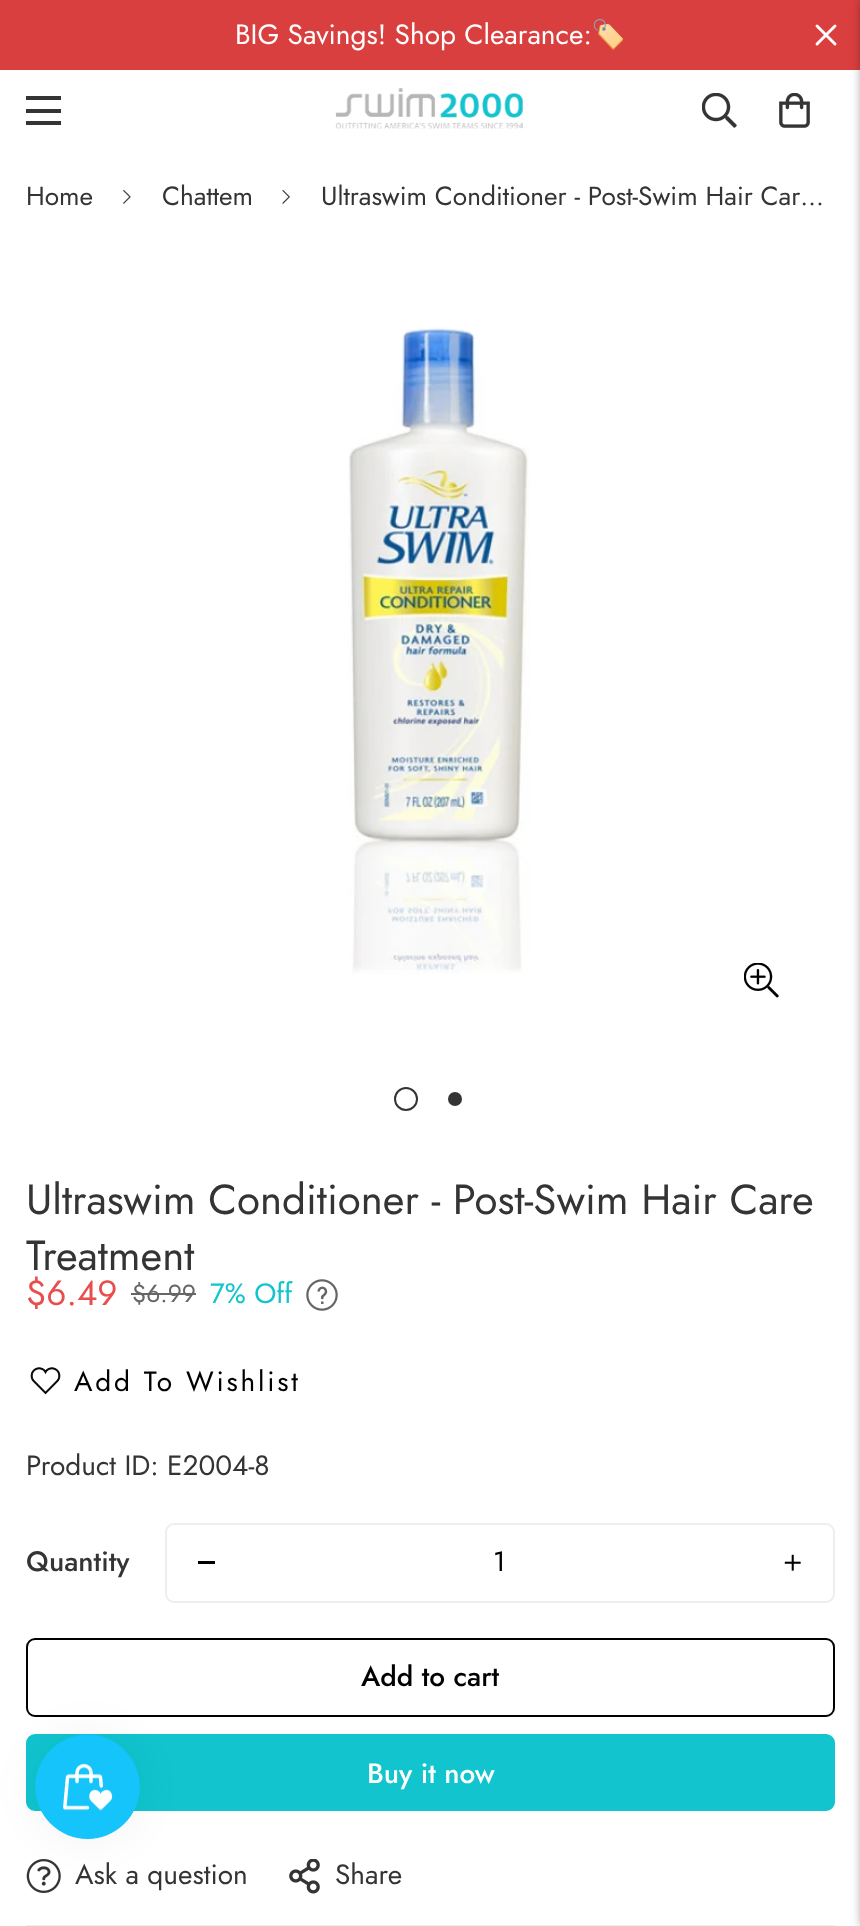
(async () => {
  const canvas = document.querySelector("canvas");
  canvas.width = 860;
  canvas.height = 1926;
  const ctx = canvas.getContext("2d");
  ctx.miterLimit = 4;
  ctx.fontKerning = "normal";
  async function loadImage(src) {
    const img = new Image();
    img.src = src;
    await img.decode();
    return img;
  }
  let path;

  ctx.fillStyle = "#ffffff";
  ctx.fillRect(0, 0, 860, 1926);
  ctx.fillStyle = "#da3f3f";
  ctx.fillRect(0, 0, 860, 70);
  path = new Path2D("M817 44L835 26M817 26L835 44");
  ctx.strokeStyle = "#ffffff";
  ctx.lineWidth = 2.9;
  ctx.lineCap = "round";
  ctx.lineJoin = "round";
  ctx.stroke(path);
  ctx.fillStyle = "rgba(0, 0, 0, 0.5)";
  ctx.filter = "blur(6px)";
  ctx.beginPath();
  ctx.rect(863, 0, 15, 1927);
  ctx.fill();
  ctx.filter = "none";
  for (const [x, y, w, h, color] of [
    [26, 109, 35, 4, "#343434"],
    [26, 96, 35, 4, "#343434"],
    [26, 121, 35, 4, "#343434"],
  ]) {
    ctx.fillStyle = color;
    ctx.fillRect(x, y, w, h);
  }
  ctx.drawImage(await loadImage("img/1.png"), 335, 88, 188, 41);
  ctx.drawImage(await loadImage("img/2.png"), 702, 93, 35, 35);
  ctx.drawImage(await loadImage("img/3.png"), 779, 93, 31, 35);
  ctx.drawImage(await loadImage("img/4.png"), 123, 190, 8, 14);
  ctx.drawImage(await loadImage("img/5.png"), 282, 190, 8, 14);
  ctx.drawImage(await loadImage("img/6.png"), 348, 326, 182, 648);
  ctx.drawImage(await loadImage("img/7.png"), 744, 963, 35, 35);
  ctx.beginPath();
  ctx.arc(406, 1099, 11, 0, Math.PI * 2);
  ctx.strokeStyle = "#343434";
  ctx.lineWidth = 2;
  ctx.stroke();
  ctx.beginPath();
  ctx.arc(455, 1099, 7, 0, Math.PI * 2);
  ctx.fill();
  ctx.fillStyle = "#666666";
  ctx.fillRect(131, 1293, 65, 2);
  ctx.drawImage(await loadImage("img/8.png"), 306, 1279, 32, 32);
  ctx.drawImage(await loadImage("img/9.png"), 30, 1367, 31, 28);
  ctx.beginPath();
  ctx.roundRect(166, 1524, 668, 78, 8);
  ctx.strokeStyle = "#eeeeee";
  ctx.lineJoin = "miter";
  ctx.stroke();
  ctx.fillStyle = "#000000";
  ctx.fillRect(198, 1561, 17, 3);
  ctx.drawImage(await loadImage("img/10.png"), 784, 1554, 17, 17);
  ctx.beginPath();
  ctx.roundRect(27, 1639, 807, 77, 8);
  ctx.strokeStyle = "#000000";
  ctx.stroke();
  ctx.fillStyle = "#11c4ce";
  ctx.beginPath();
  ctx.roundRect(27, 1735, 807, 75, 8);
  ctx.fill();
  ctx.strokeStyle = "#11c4ce";
  ctx.stroke();
  ctx.fillStyle = "#eeeeee";
  ctx.fillRect(26, 1925, 809, 1);
  ctx.drawImage(await loadImage("img/11.png"), 26, 1859, 35, 34);
  ctx.drawImage(await loadImage("img/12.png"), 289, 1859, 31, 35);
  ctx.fillStyle = "rgba(0, 0, 0, 0.05)";
  ctx.filter = "blur(22px)";
  ctx.beginPath();
  ctx.roundRect(35, 1734, 105, 105, 52.5);
  ctx.fill();
  ctx.filter = "none";
  ctx.drawImage(await loadImage("img/13.png"), 35, 1734, 105, 106);
  ctx.font = "28px Jost";
  ctx.fillStyle = "#ffffff";
  ctx.fillText("BIG Savings! Shop Clearance:", 235, 44);
  ctx.font = "28px Noto Color Emoji";
  ctx.fillText("🏷️", 591, 44);
  ctx.font = "26.25px Jost";
  ctx.fillStyle = "#343434";
  for (const [text, x, y] of [
    ["Home", 26, 205],
    ["Chattem", 162, 205],
    ["Ultraswim Conditioner - Post-Swim Hair Car…", 321, 205],
  ]) {
    ctx.fillText(text, x, y);
  }
  ctx.font = "42px Jost";
  ctx.fillText("Ultraswim Conditioner - Post-Swim Hair Care", 26, 1214);
  ctx.fillText("Treatment", 26, 1270);
  ctx.font = "35px Jost";
  ctx.fillStyle = "#e84e4e";
  ctx.fillText("$6.49", 26, 1305);
  ctx.font = "24.5px Jost";
  ctx.fillStyle = "#666666";
  ctx.fillText("$6.99", 132, 1302);
  ctx.font = "28px Jost";
  ctx.fillStyle = "#11c4ce";
  ctx.fillText("7% Off", 210, 1303);
  ctx.letterSpacing = "2.75px";
  ctx.fillStyle = "#000000";
  ctx.fillText("Add To Wishlist", 74, 1391);
  ctx.letterSpacing = "0px";
  ctx.fillStyle = "#343434";
  ctx.fillText("Product ID: E2004-8", 26, 1475);
  ctx.font = "500 28px Jost";
  ctx.fillText("Quantity", 26, 1571);
  ctx.font = "28px Jost";
  ctx.fillStyle = "#000000";
  ctx.fillText("1", 493, 1571);
  ctx.font = "500 28px Jost";
  ctx.fillText("Add to cart", 361, 1686);
  ctx.fillStyle = "#ffffff";
  ctx.fillText("Buy it now", 367, 1783);
  ctx.font = "28px Jost";
  ctx.fillStyle = "#343434";
  ctx.fillText("Ask a question", 75, 1884);
  ctx.fillText("Share", 335, 1884);
})();
